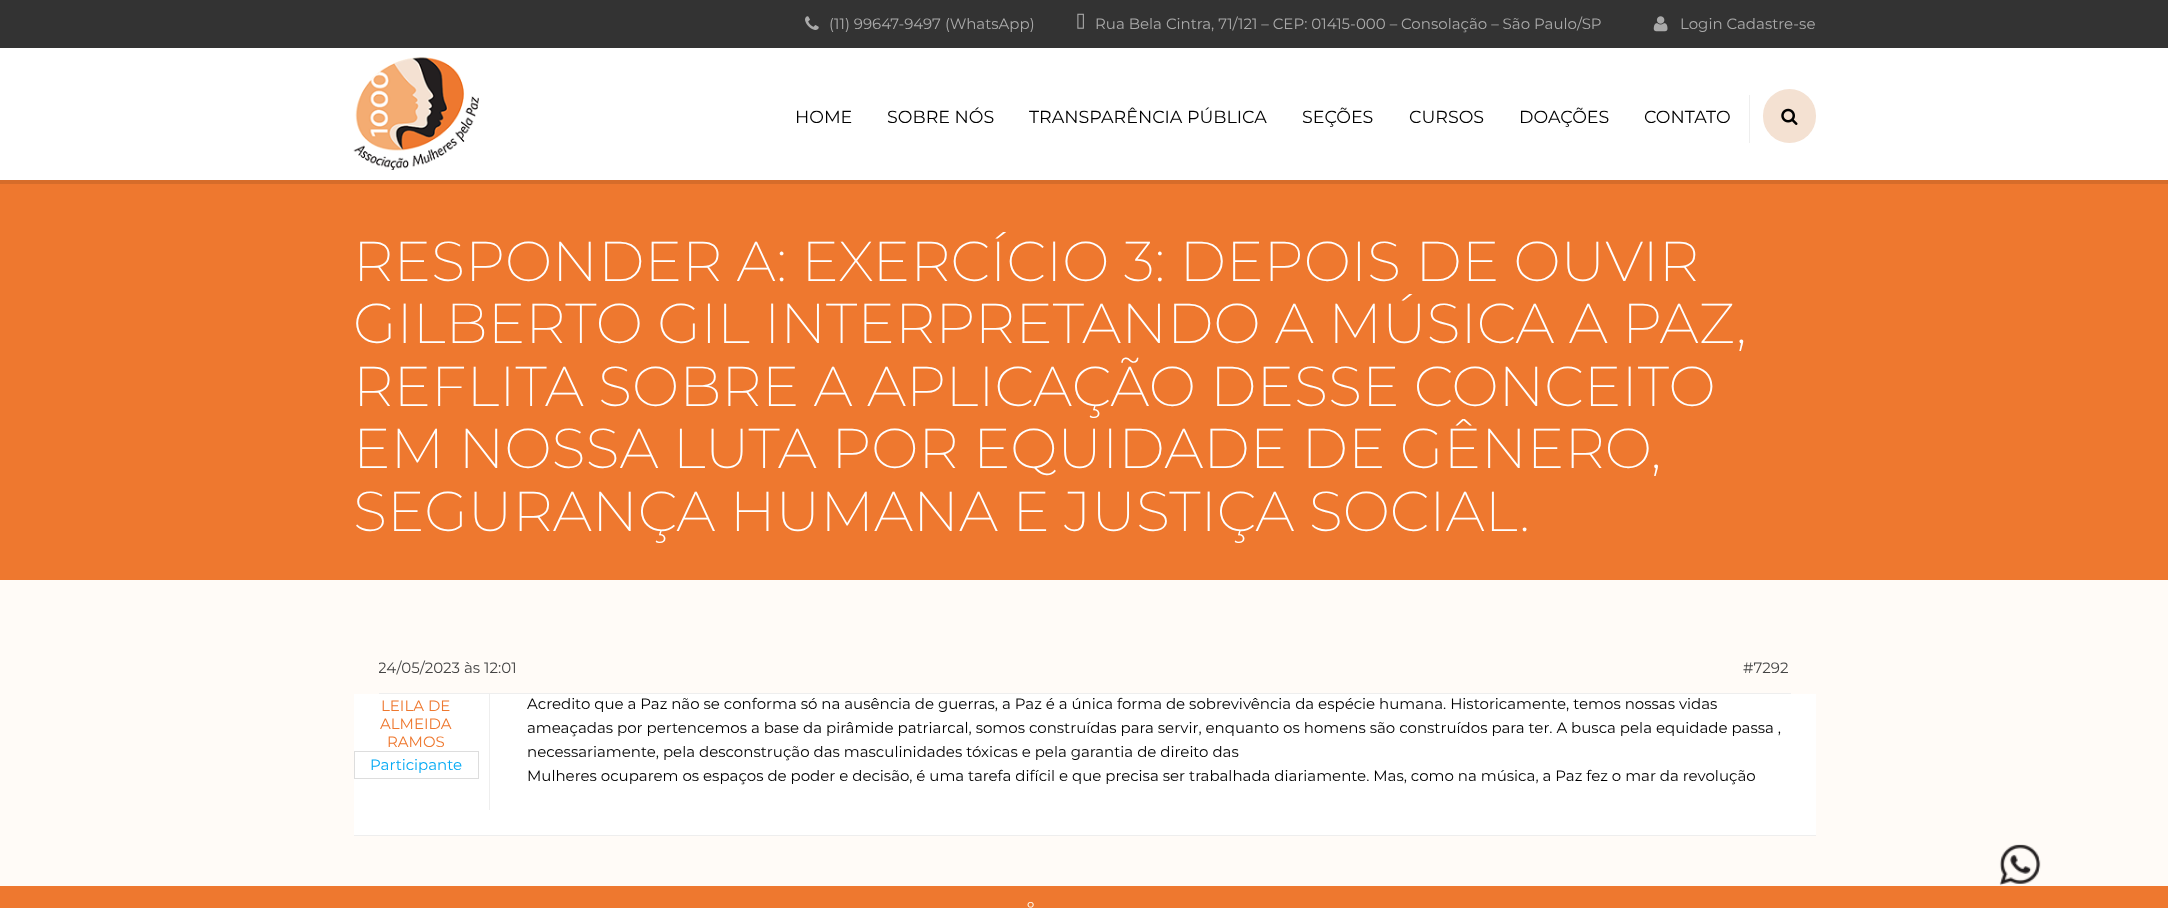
(async () => {
  const canvas = document.querySelector("canvas");
  canvas.width = 2168;
  canvas.height = 908;
  const ctx = canvas.getContext("2d");
  ctx.miterLimit = 4;
  ctx.fontKerning = "normal";
  async function loadImage(src) {
    const img = new Image();
    img.src = src;
    await img.decode();
    return img;
  }

  ctx.fillStyle = "#fffbf7";
  ctx.fillRect(0, 0, 2168, 908);
  ctx.fillStyle = "#333333";
  ctx.fillRect(0, 0, 2168, 48);
  ctx.drawImage(await loadImage("img/1.png"), 805, 16, 14, 14);
  ctx.drawImage(await loadImage("img/2.png"), 1077, 13, 7, 16);
  ctx.drawImage(await loadImage("img/3.png"), 1653, 16, 15, 16);
  ctx.fillStyle = "#ffffff";
  ctx.fillRect(0, 48, 2168, 132);
  ctx.drawImage(await loadImage("img/4.png"), 353, 57, 126, 113);
  ctx.fillStyle = "#eeeeee";
  ctx.fillRect(1749, 95, 1, 48);
  ctx.fillStyle = "#f4e1d2";
  ctx.beginPath();
  ctx.roundRect(1763, 89, 53, 54, 26.5);
  ctx.fill();
  ctx.drawImage(await loadImage("img/5.png"), 1781, 108, 17, 17);
  for (const [x, y, w, h, color] of [
    [0, 180, 2168, 4, "#d66c2a"],
    [0, 184, 2168, 396, "#ee782f"],
    [379, 693, 1412, 1, "#eeeeee"],
    [354, 694, 1462, 141, "#ffffff"],
    [354, 835, 1462, 1, "#eeeeee"],
  ]) {
    ctx.fillStyle = color;
    ctx.fillRect(x, y, w, h);
  }
  ctx.strokeStyle = "#dddddd";
  ctx.strokeRect(354.5, 751.5, 124, 27);
  ctx.fillRect(489, 694, 1, 116);
  ctx.drawImage(await loadImage("img/6.png"), 1999, 844, 42, 42);
  ctx.fillStyle = "#ee782f";
  ctx.fillRect(0, 886, 2168, 22);
  ctx.font = "15px Montserrat";
  ctx.fillStyle = "#aaaaaa";
  for (const [text, x, y] of [
    ["(11) 99647-9497 (WhatsApp)", 829, 29],
    ["Rua Bela Cintra, 71/121 – CEP: 01415-000 – Consolação – São Paulo/SP", 1095, 29],
    ["Login Cadastre-se", 1680, 29],
  ]) {
    ctx.fillText(text, x, y);
  }
  ctx.font = "17.5px Montserrat";
  ctx.fillStyle = "#000000";
  for (const [text, x, y] of [
    ["HOME", 795, 123],
    ["SOBRE NÓS", 887, 123],
    ["TRANSPARÊNCIA PÚBLICA", 1029, 123],
    ["SEÇÕES", 1302, 123],
    ["CURSOS", 1409, 123],
    ["DOAÇÕES", 1519, 123],
    ["CONTATO", 1644, 123],
  ]) {
    ctx.fillText(text, x, y);
  }
  ctx.font = "200 56.25px Montserrat";
  ctx.fillStyle = "#ffffff";
  for (const [text, x, y] of [
    ["RESPONDER A: EXERCÍCIO 3: DEPOIS DE OUVIR", 353, 281],
    ["GILBERTO GIL INTERPRETANDO A MÚSICA A PAZ,", 353, 343],
    ["REFLITA SOBRE A APLICAÇÃO DESSE CONCEITO", 353, 406],
    ["EM NOSSA LUTA POR EQUIDADE DE GÊNERO,", 353, 468],
    ["SEGURANÇA HUMANA E JUSTIÇA SOCIAL.", 353, 531],
  ]) {
    ctx.fillText(text, x, y);
  }
  ctx.save();
  ctx.beginPath();
  ctx.rect(379, 645, 1412, 48);
  ctx.clip();
  ctx.font = "15px Montserrat";
  ctx.fillStyle = "#444444";
  ctx.fillText("24/05/2023 às 12:01", 378, 673);
  ctx.restore();
  ctx.font = "15px Montserrat";
  ctx.fillStyle = "#444444";
  ctx.fillText("#7292", 1743, 673);
  ctx.fillStyle = "#ee782f";
  for (const [text, x, y] of [
    ["LEILA DE", 381, 711],
    ["ALMEIDA", 380, 729],
    ["RAMOS", 387, 747],
  ]) {
    ctx.fillText(text, x, y);
  }
  ctx.fillStyle = "#03a9f4";
  ctx.fillText("Participante", 370, 770);
  ctx.fillStyle = "#000000";
  for (const [text, x, y] of [
    ["Acredito que a Paz não se conforma só na ausência de guerras, a Paz é a única forma de sobrevivência da espécie humana. Historicamente, temos nossas vidas", 527, 709],
    ["ameaçadas por pertencemos a base da pirâmide patriarcal, somos construídas para servir, enquanto os homens são construídos para ter. A busca pela equidade passa ,", 527, 733],
    ["necessariamente, pela desconstrução das masculinidades tóxicas e pela garantia de direito das", 527, 757],
    ["Mulheres ocuparem os espaços de poder e decisão, é uma tarefa difícil e que precisa ser trabalhada diariamente. Mas, como na música, a Paz fez o mar da revolução", 527, 781],
  ]) {
    ctx.fillText(text, x, y);
  }
  ctx.font = "17.5px Montserrat";
  ctx.fillStyle = "#fffbef";
  ctx.fillText("º", 1027, 915);
})();
